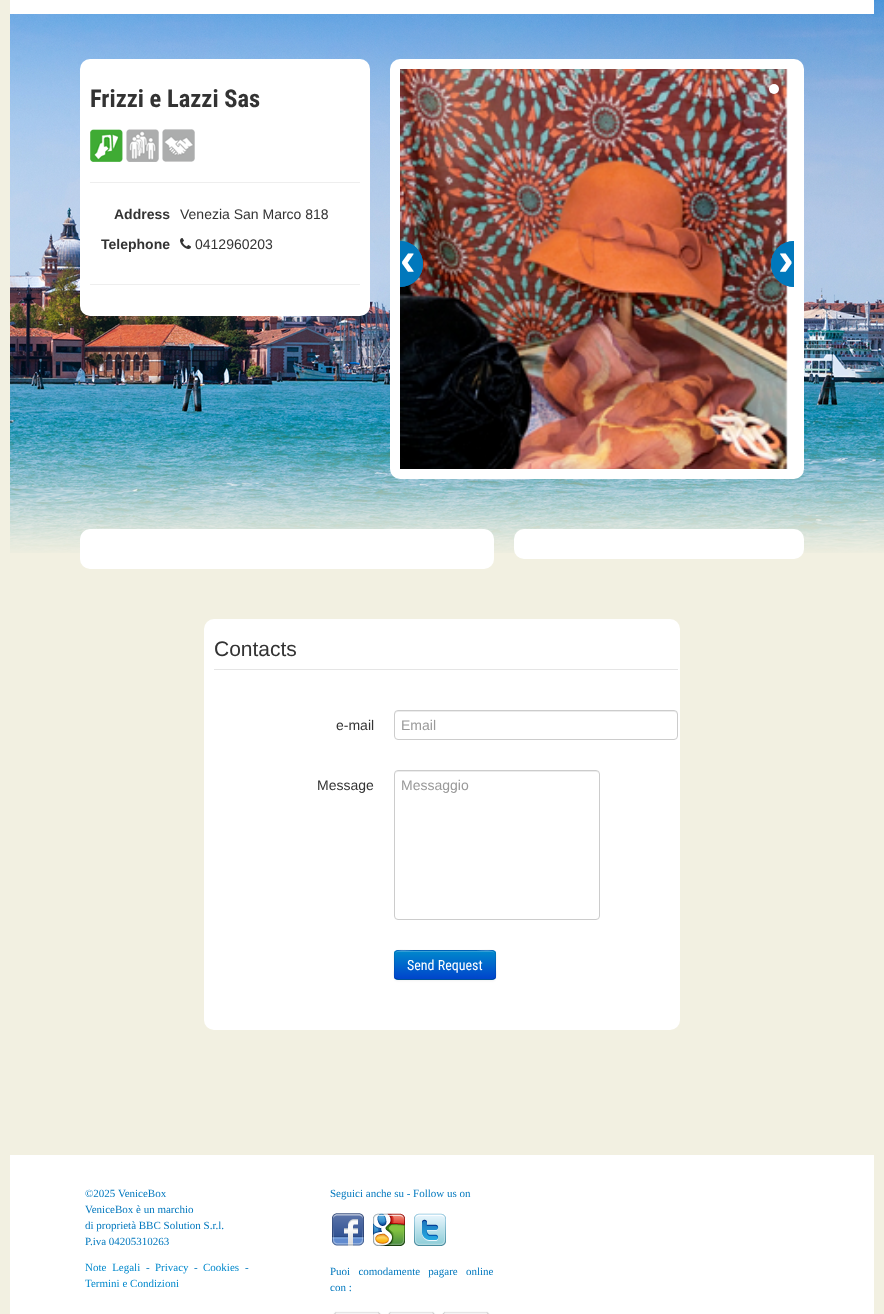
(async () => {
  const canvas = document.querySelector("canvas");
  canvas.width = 884;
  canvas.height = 1314;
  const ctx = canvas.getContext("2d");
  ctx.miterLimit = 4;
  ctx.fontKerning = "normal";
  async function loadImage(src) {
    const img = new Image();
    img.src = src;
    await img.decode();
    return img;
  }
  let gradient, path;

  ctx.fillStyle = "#f2f0e1";
  ctx.fillRect(0, 0, 884, 1314);
  ctx.drawImage(await loadImage("img/1.png"), 10, 0, 874, 553);
  ctx.fillStyle = "#ffffff";
  ctx.fillRect(10, 0, 864, 14);
  ctx.beginPath();
  ctx.roundRect(80, 59, 290, 257, 10);
  ctx.fill();
  ctx.drawImage(await loadImage("img/2.png"), 90, 129, 33, 33);
  ctx.drawImage(await loadImage("img/3.png"), 126, 129, 33, 33);
  ctx.drawImage(await loadImage("img/4.png"), 162, 129, 33, 33);
  ctx.fillStyle = "#eeeeee";
  ctx.fillRect(90, 182, 270, 1);
  ctx.drawImage(await loadImage("img/5.png"), 180, 238, 11, 11);
  ctx.fillRect(90, 284, 270, 1);
  ctx.fillStyle = "#ffffff";
  ctx.beginPath();
  ctx.roundRect(390, 59, 414, 420, 10);
  ctx.fill();
  ctx.drawImage(await loadImage("img/6.png"), 400, 69, 388, 400);
  ctx.beginPath();
  ctx.arc(774, 89, 5, 0, Math.PI * 2);
  ctx.fill();
  ctx.fillStyle = "#0178bc";
  ctx.beginPath();
  ctx.roundRect(400, 241, 23, 46, [0, 23, 23, 0]);
  ctx.fill();
  ctx.save();
  ctx.beginPath();
  ctx.rect(400, 69, 394, 400);
  ctx.clip();
  ctx.beginPath();
  ctx.arc(400, 264, 21.5, 0, Math.PI * 2);
  ctx.strokeStyle = "#0178bc";
  ctx.lineWidth = 3;
  ctx.stroke();
  ctx.restore();
  ctx.beginPath();
  ctx.roundRect(771, 241, 23, 46, [23, 0, 0, 23]);
  ctx.fill();
  ctx.save();
  ctx.beginPath();
  ctx.rect(400, 69, 394, 400);
  ctx.clip();
  ctx.beginPath();
  ctx.arc(794, 264, 21.5, 0, Math.PI * 2);
  ctx.strokeStyle = "#0178bc";
  ctx.lineWidth = 3;
  ctx.stroke();
  ctx.restore();
  ctx.fillStyle = "#ffffff";
  ctx.beginPath();
  ctx.roundRect(80, 529, 414, 40, 10);
  ctx.fill();
  ctx.beginPath();
  ctx.roundRect(514, 529, 290, 30, 10);
  ctx.fill();
  ctx.beginPath();
  ctx.roundRect(204, 619, 476, 411, 10);
  ctx.fill();
  ctx.fillStyle = "#e5e5e5";
  ctx.fillRect(214, 669, 464, 1);
  ctx.fillStyle = "#ececec";
  path = new Path2D("M398 712H674C676 712 677 713 677 715V714C677 712 676 711 674 711H398C396 711 395 712 395 714V715C395 713 396 712 398 712Z");
  ctx.fill(path);
  ctx.beginPath();
  ctx.roundRect(394.5, 710.5, 283, 29, 3.5);
  ctx.strokeStyle = "#cccccc";
  ctx.stroke();
  path = new Path2D("M398 772H596C598 772 599 773 599 775C599 773 598 771 596 771H398C396 771 395 773 395 775C395 773 396 772 398 772Z");
  ctx.fill(path);
  ctx.beginPath();
  ctx.roundRect(394.5, 770.5, 205, 149, 3.5);
  ctx.stroke();
  ctx.fillStyle = "rgba(0, 0, 0, 0.05)";
  ctx.filter = "blur(1px)";
  ctx.beginPath();
  ctx.roundRect(394, 951, 102, 30, 4);
  ctx.fill();
  ctx.filter = "none";
  ctx.fillStyle = "#006dcc";
  ctx.beginPath();
  ctx.roundRect(394, 950, 102, 30, 4);
  ctx.fill();
  ctx.save();
  ctx.beginPath();
  ctx.roundRect(394, 950, 102, 30, 4);
  ctx.clip();
  gradient = ctx.createLinearGradient(445, 951, 445, 979);
  gradient.addColorStop(0, "#0088cc");
  gradient.addColorStop(1, "#0044cc");
  ctx.fillStyle = gradient;
  ctx.fillRect(394, 951, 102, 28);
  ctx.restore();
  ctx.fillStyle = "rgba(255, 255, 255, 0.2)";
  path = new Path2D("M398 952H492C494 952 495 953 495 955C495 947 479 951 476 951H414C411 951 395 947 395 955C395 953 396 952 398 952Z");
  ctx.fill(path);
  path = new Path2D("M494.5 978.5L492.5 979.5H413.5H398L395.5 978.5");
  ctx.strokeStyle = "rgba(0, 0, 0, 0.25)";
  ctx.stroke(path);
  path = new Path2D("M395.5 978.5C393 976 394.5 971.5 394.5 968.5C394.5 947 391 950.5 413.5 950.5H476.5C499 950.5 495.5 947 495.5 968.5C495.5 971.5 497 976 494.5 978.5");
  ctx.strokeStyle = "rgba(0, 0, 0, 0.1)";
  ctx.stroke(path);
  ctx.fillStyle = "#ffffff";
  ctx.fillRect(10, 1155, 864, 159);
  ctx.drawImage(await loadImage("img/7.png"), 332, 1213, 32, 33);
  ctx.drawImage(await loadImage("img/8.png"), 373, 1213, 32, 33);
  ctx.drawImage(await loadImage("img/9.png"), 414, 1213, 32, 33);
  ctx.drawImage(await loadImage("img/10.png"), 333, 1311, 157, 3);
  ctx.font = "bold 24.5px Roboto Condensed";
  ctx.fillStyle = "#333333";
  ctx.fillText("Frizzi e Lazzi Sas", 90, 107);
  ctx.font = "bold 14px Liberation Sans";
  ctx.fillText("Address", 114, 219);
  ctx.font = "14px Liberation Sans";
  ctx.fillText("Venezia San Marco 818", 180, 219);
  ctx.font = "bold 14px Liberation Sans";
  ctx.fillText("Telephone", 101, 249);
  ctx.font = "14px Liberation Sans";
  ctx.fillText("0412960203", 195, 249);
  ctx.font = "bold 47px Liberation Sans";
  ctx.fillStyle = "#ffffff";
  ctx.fillText("‹", 400, 275);
  ctx.fillText("›", 778, 275);
  ctx.font = "21px Liberation Sans";
  ctx.fillStyle = "#333333";
  ctx.fillText("Contacts", 214, 656);
  ctx.font = "14px Liberation Sans";
  ctx.fillText("e-mail", 336, 730);
  ctx.fillStyle = "#999999";
  ctx.fillText("Email", 401, 730);
  ctx.fillStyle = "#333333";
  ctx.fillText("Message", 317, 790);
  ctx.fillStyle = "#999999";
  ctx.fillText("Messaggio", 401, 790);
  ctx.font = "14px Roboto Condensed";
  ctx.fillStyle = "#ffffff";
  ctx.fillText("Send Request", 407, 970);
  ctx.font = "11px Liberation Serif";
  ctx.fillStyle = "#0278be";
  for (const [text, x, y] of [
    ["©2025 VeniceBox", 85, 1197],
    ["VeniceBox è un marchio", 85, 1213],
    ["di proprietà BBC Solution S.r.l.", 85, 1229],
    ["P.iva 04205310263", 85, 1245],
  ]) {
    ctx.fillText(text, x, y);
  }
  ctx.wordSpacing = "3px";
  ctx.fillStyle = "#0088cc";
  ctx.fillText("Note Legali", 85, 1271);
  ctx.wordSpacing = "0px";
  ctx.fillStyle = "#0278be";
  ctx.fillText("-", 146, 1271);
  ctx.fillStyle = "#0088cc";
  ctx.fillText("Privacy", 155, 1271);
  ctx.fillStyle = "#0278be";
  ctx.fillText("-", 194, 1271);
  ctx.fillStyle = "#0088cc";
  ctx.fillText("Cookies", 203, 1271);
  ctx.fillStyle = "#0278be";
  ctx.fillText("-", 245, 1271);
  ctx.fillStyle = "#0088cc";
  ctx.fillText("Termini e Condizioni", 85, 1287);
  ctx.fillStyle = "#0278be";
  ctx.fillText("Seguici anche su - Follow us on", 330, 1197);
  ctx.wordSpacing = "5.5px";
  ctx.fillText("Puoi comodamente pagare online", 330, 1275);
  ctx.wordSpacing = "0px";
  ctx.fillText("con :", 330, 1291);
})();
